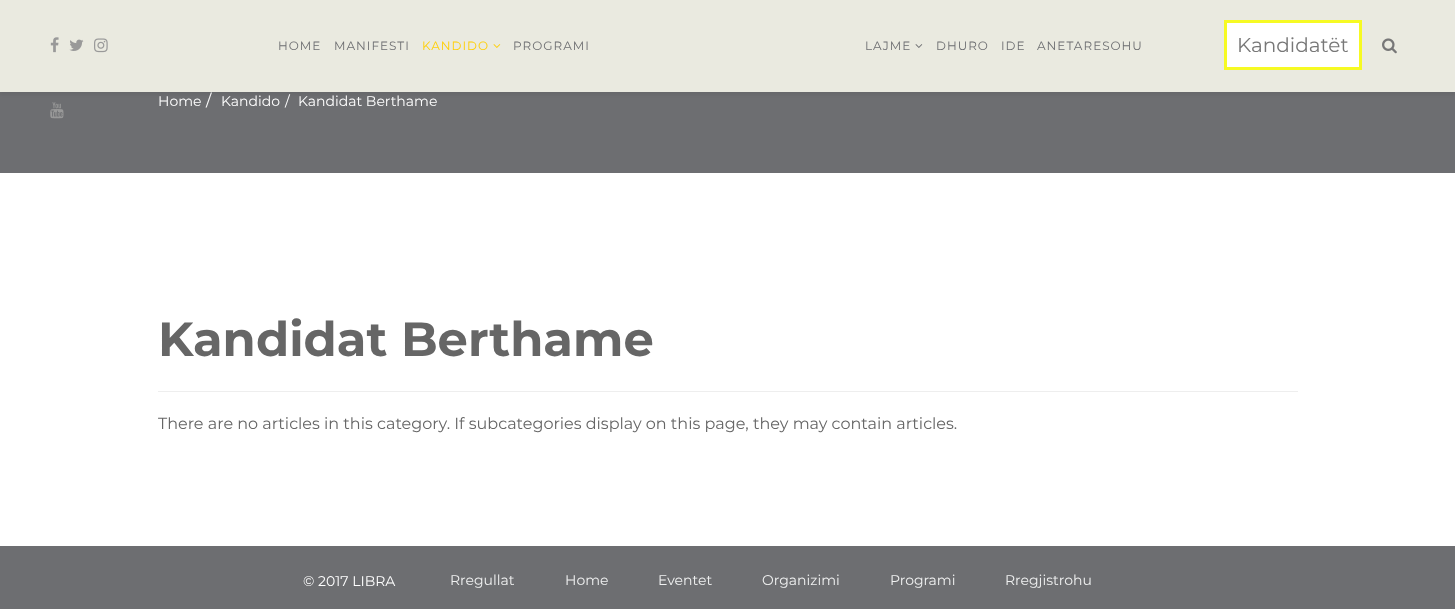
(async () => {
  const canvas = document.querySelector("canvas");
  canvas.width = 1455;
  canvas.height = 609;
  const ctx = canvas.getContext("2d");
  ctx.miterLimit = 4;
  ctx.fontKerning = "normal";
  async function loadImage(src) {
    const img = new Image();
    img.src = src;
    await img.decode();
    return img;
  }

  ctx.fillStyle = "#ffffff";
  ctx.fillRect(0, 0, 1455, 609);
  ctx.fillStyle = "#6d6e71";
  ctx.fillRect(0, 92, 1455, 81);
  ctx.fillStyle = "rgba(0, 0, 0, 0.05)";
  ctx.filter = "blur(1.5px)";
  ctx.beginPath();
  ctx.rect(0, 3, 1455, 92);
  ctx.fill();
  ctx.filter = "none";
  ctx.fillStyle = "#eaeae0";
  ctx.fillRect(0, 0, 1455, 92);
  ctx.drawImage(await loadImage("img/1.png"), 50, 37, 9, 16);
  ctx.drawImage(await loadImage("img/2.png"), 69, 39, 15, 12);
  ctx.drawImage(await loadImage("img/3.png"), 94, 38, 14, 15);
  ctx.drawImage(await loadImage("img/4.png"), 50, 102, 14, 17);
  ctx.drawImage(await loadImage("img/5.png"), 493, 44, 8, 4);
  ctx.drawImage(await loadImage("img/6.png"), 915, 44, 8, 4);
  ctx.fillStyle = "#ffffff";
  ctx.beginPath();
  ctx.rect(1225.5, 21.5, 135, 47);
  ctx.fill();
  ctx.strokeStyle = "#f6fa23";
  ctx.lineWidth = 3;
  ctx.stroke();
  ctx.drawImage(await loadImage("img/7.png"), 1382, 38, 15, 16);
  ctx.fillStyle = "#eeeeee";
  ctx.fillRect(158, 391, 1140, 1);
  ctx.fillStyle = "#6d6e71";
  ctx.fillRect(0, 546, 1455, 63);
  ctx.letterSpacing = "1px";
  ctx.font = "12px Montserrat";
  ctx.fillText("HOME", 278, 50);
  ctx.fillText("MANIFESTI", 334, 50);
  ctx.fillStyle = "#ffcf06";
  ctx.fillText("KANDIDO", 422, 50);
  ctx.fillStyle = "#6d6e71";
  for (const [text, x, y] of [
    ["PROGRAMI", 513, 50],
    ["LAJME", 865, 50],
    ["DHURO", 936, 50],
    ["IDE", 1001, 50],
    ["ANETARESOHU", 1037, 50],
  ]) {
    ctx.fillText(text, x, y);
  }
  ctx.letterSpacing = "0px";
  ctx.font = "20px Montserrat";
  ctx.fillStyle = "#777777";
  ctx.fillText("Kandidatët", 1237, 52);
  ctx.font = "14px Montserrat";
  ctx.fillStyle = "#ffffff";
  ctx.fillText("Home", 158, 106);
  ctx.font = "16px Montserrat";
  ctx.fillText("/", 206, 106);
  ctx.font = "14px Montserrat";
  for (const [text, x, y] of [
    ["Kandido", 221, 106],
    ["/", 285, 106],
    ["Kandidat Berthame", 298, 106],
  ]) {
    ctx.fillText(text, x, y);
  }
  ctx.font = "bold 48px Montserrat";
  ctx.fillStyle = "#666666";
  ctx.fillText("Kandidat Berthame", 158, 356);
  ctx.font = "16px Montserrat";
  ctx.fillText("There are no articles in this category. If subcategories display on this page, they may contain articles.", 158, 429);
  ctx.font = "14px Montserrat";
  ctx.fillStyle = "#ffffff";
  ctx.fillText("© 2017 LIBRA", 303, 586);
  ctx.fillStyle = "#f0f1f1";
  for (const [text, x, y] of [
    ["Rregullat", 450, 585],
    ["Home", 565, 585],
    ["Eventet", 658, 585],
    ["Organizimi", 762, 585],
    ["Programi", 890, 585],
    ["Rregjistrohu", 1005, 585],
  ]) {
    ctx.fillText(text, x, y);
  }
})();
